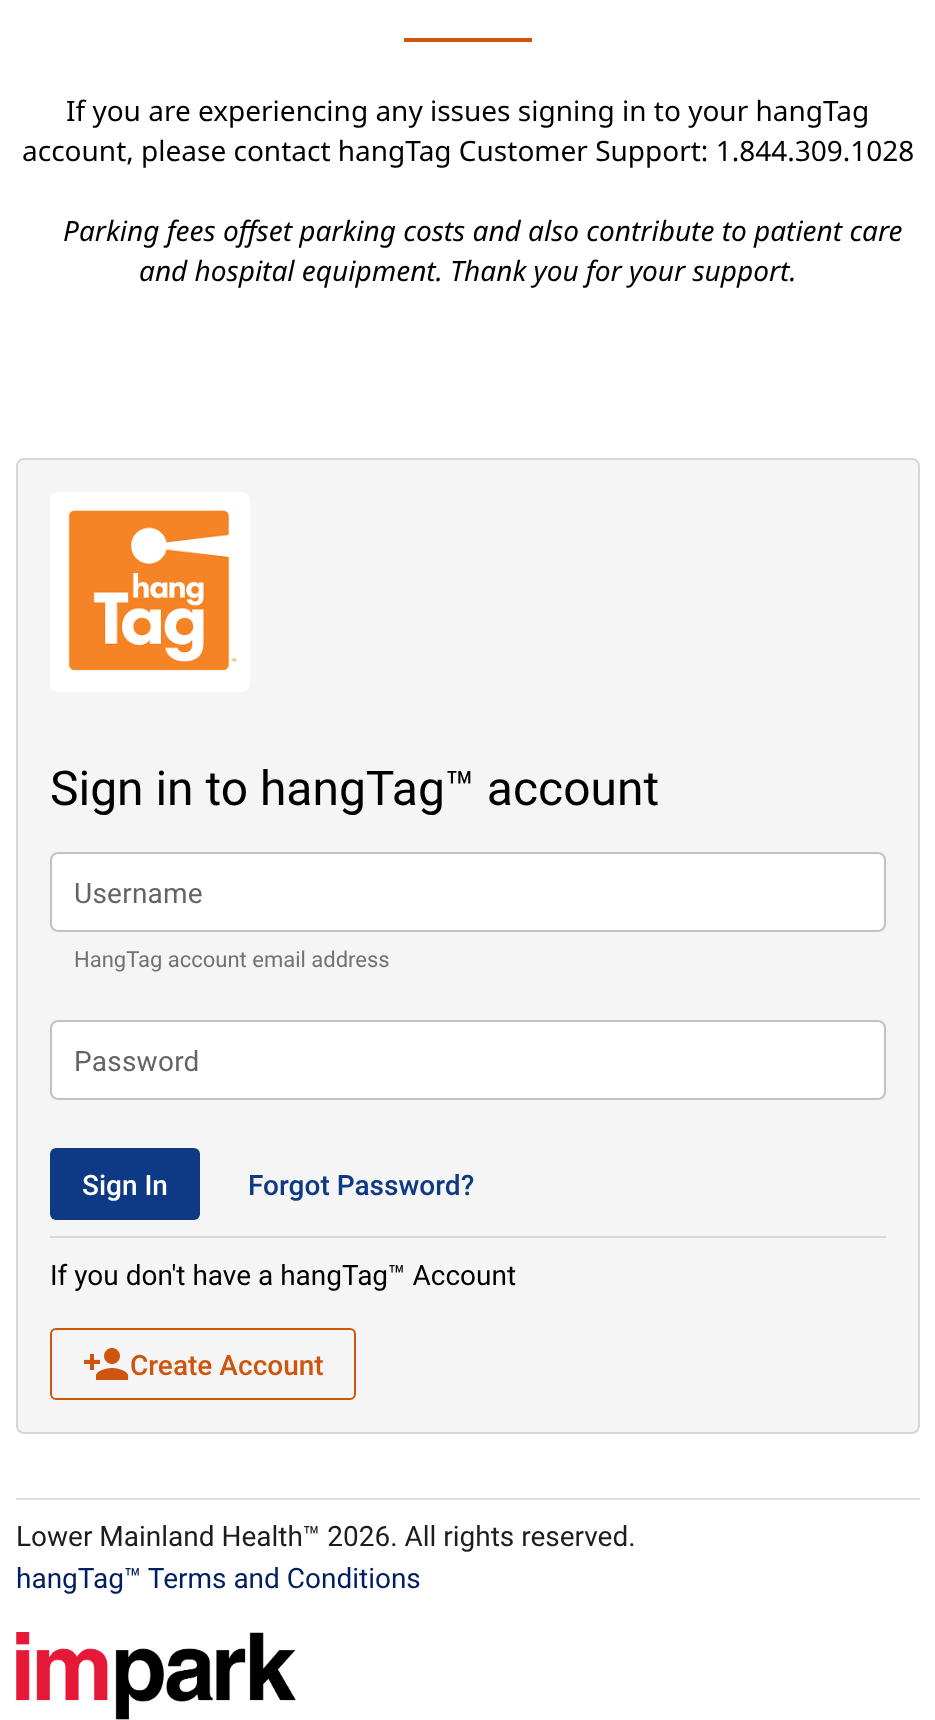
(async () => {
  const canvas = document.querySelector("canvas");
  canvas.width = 935;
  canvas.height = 1720;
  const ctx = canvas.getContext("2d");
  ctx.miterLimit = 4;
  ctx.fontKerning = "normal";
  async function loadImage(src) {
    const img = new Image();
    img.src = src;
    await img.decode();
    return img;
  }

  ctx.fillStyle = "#ffffff";
  ctx.fillRect(0, 0, 935, 1720);
  ctx.fillStyle = "#ce550d";
  ctx.fillRect(404, 38, 128, 4);
  ctx.fillStyle = "#f5f5f5";
  ctx.beginPath();
  ctx.roundRect(16, 458, 904, 976, 8);
  ctx.fill();
  ctx.beginPath();
  ctx.roundRect(17, 459, 902, 974, 7);
  ctx.strokeStyle = "rgba(0, 0, 0, 0.12)";
  ctx.lineWidth = 2;
  ctx.stroke();
  ctx.drawImage(await loadImage("img/1.png"), 50, 492, 200, 200);
  ctx.fillStyle = "#ffffff";
  ctx.beginPath();
  ctx.roundRect(50, 852, 836, 80, 8);
  ctx.fill();
  ctx.beginPath();
  ctx.roundRect(51, 853, 834, 78, 7);
  ctx.strokeStyle = "rgba(0, 0, 0, 0.24)";
  ctx.stroke();
  ctx.beginPath();
  ctx.roundRect(50, 1020, 836, 80, 8);
  ctx.fill();
  ctx.beginPath();
  ctx.roundRect(51, 1021, 834, 78, 7);
  ctx.stroke();
  ctx.fillStyle = "#0e3984";
  ctx.beginPath();
  ctx.roundRect(50, 1148, 150, 72, 6);
  ctx.fill();
  ctx.fillStyle = "#d8d8d8";
  ctx.fillRect(50, 1236, 836, 2);
  ctx.beginPath();
  ctx.roundRect(51, 1329, 304, 70, 5);
  ctx.strokeStyle = "#ce550d";
  ctx.stroke();
  ctx.drawImage(await loadImage("img/2.png"), 83, 1348, 46, 32);
  ctx.fillStyle = "#e0e0e0";
  ctx.fillRect(16, 1498, 904, 2);
  ctx.drawImage(await loadImage("img/3.png"), 16, 1632, 280, 88);
  ctx.font = "28px Noto Sans";
  ctx.fillStyle = "#000000";
  ctx.fillText("If you are experiencing any issues signing in to your hangTag", 66, 121);
  ctx.fillText("account, please contact hangTag Customer Support: 1.844.309.1028", 22, 161);
  ctx.font = "italic 28px Noto Sans";
  ctx.fillText("Parking fees offset parking costs and also contribute to patient care", 63, 241);
  ctx.fillText("and hospital equipment. Thank you for your support.", 139, 281);
  ctx.font = "48px Roboto";
  ctx.fillText("Sign in to hangTag™ account", 50, 805);
  ctx.letterSpacing = "0.25px";
  ctx.font = "28px Roboto";
  ctx.fillStyle = "#646464";
  ctx.fillText("Username", 74, 903);
  ctx.letterSpacing = "0px";
  ctx.font = "22px Roboto";
  ctx.fillStyle = "#717171";
  ctx.fillText("HangTag account email address", 74, 967);
  ctx.letterSpacing = "0.25px";
  ctx.font = "28px Roboto";
  ctx.fillStyle = "#646464";
  ctx.fillText("Password", 74, 1071);
  ctx.letterSpacing = "0px";
  ctx.font = "500 28px Roboto";
  ctx.fillStyle = "#ffffff";
  ctx.fillText("Sign In", 82, 1195);
  ctx.fillStyle = "#0e3984";
  ctx.fillText("Forgot Password?", 248, 1195);
  ctx.font = "28px Roboto";
  ctx.fillStyle = "#000000";
  ctx.fillText("If you don't have a hangTag™ Account", 50, 1285);
  ctx.font = "500 28px Roboto";
  ctx.fillStyle = "#ce550d";
  ctx.fillText("Create Account", 130, 1375);
  ctx.font = "28px Roboto";
  ctx.fillStyle = "#1d1d1d";
  ctx.fillText("Lower Mainland Health™ 2026. All rights reserved.", 16, 1546);
  ctx.fillStyle = "#001e61";
  ctx.fillText("hangTag™ Terms and Conditions", 16, 1588);
})();
